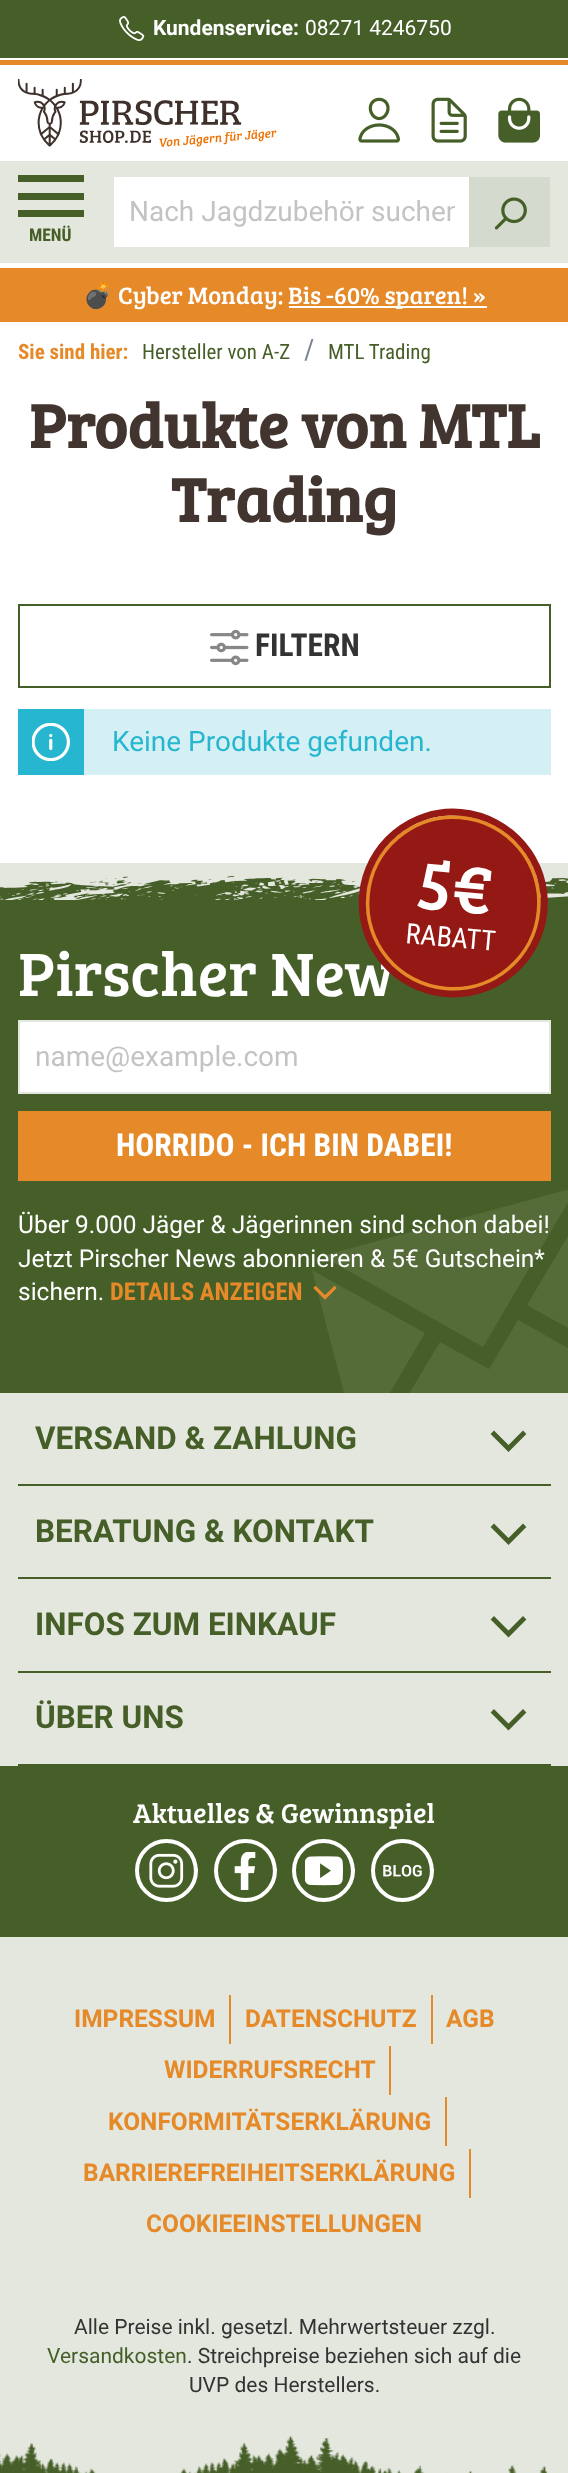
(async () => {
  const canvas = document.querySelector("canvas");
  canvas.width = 568;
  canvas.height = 2473;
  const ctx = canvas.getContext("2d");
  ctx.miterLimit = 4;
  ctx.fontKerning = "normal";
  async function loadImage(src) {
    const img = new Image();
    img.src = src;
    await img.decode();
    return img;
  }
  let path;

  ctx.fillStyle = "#ffffff";
  ctx.fillRect(0, 0, 568, 2473);
  ctx.fillStyle = "#465f28";
  ctx.fillRect(0, 0, 568, 58);
  ctx.drawImage(await loadImage("img/1.png"), 119, 15, 26, 26);
  ctx.fillStyle = "#e68a29";
  ctx.fillRect(0, 60, 568, 5);
  ctx.drawImage(await loadImage("img/2.png"), 18, 79, 259, 68);
  ctx.drawImage(await loadImage("img/3.png"), 358, 97, 42, 46);
  ctx.drawImage(await loadImage("img/4.png"), 431, 97, 36, 46);
  ctx.drawImage(await loadImage("img/5.png"), 498, 97, 42, 46);
  for (const [x, y, w, h, color] of [
    [0, 161, 568, 102, "#e3e7de"],
    [114, 177, 355, 70, "#ffffff"],
    [469, 177, 81, 70, "#d4dace"],
  ]) {
    ctx.fillStyle = color;
    ctx.fillRect(x, y, w, h);
  }
  ctx.drawImage(await loadImage("img/6.png"), 494, 197, 33, 33);
  for (const [x, y, w, h, color] of [
    [18, 175, 66, 7, "#465f28"],
    [18, 193, 66, 7, "#465f28"],
    [18, 210, 66, 7, "#465f28"],
    [0, 268, 568, 54, "#e68a29"],
    [289, 306, 198, 2, "#ffffff"],
  ]) {
    ctx.fillStyle = color;
    ctx.fillRect(x, y, w, h);
  }
  ctx.strokeStyle = "#465f28";
  ctx.lineWidth = 2;
  ctx.strokeRect(19, 605, 531, 82);
  ctx.drawImage(await loadImage("img/7.png"), 210, 629, 39, 37);
  ctx.fillStyle = "#26b6cf";
  ctx.fillRect(18, 709, 66, 66);
  ctx.drawImage(await loadImage("img/8.png"), 32, 723, 38, 38);
  for (const [x, y, w, h, color] of [
    [84, 709, 467, 66, "#d4f0f5"],
    [0, 863, 568, 1610, "#e3e7de"],
    [0, 900, 568, 493, "#465f28"],
  ]) {
    ctx.fillStyle = color;
    ctx.fillRect(x, y, w, h);
  }
  ctx.fillStyle = "#556c39";
  path = new Path2D("M483 1347L322 1256L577 1187Z");
  ctx.fill(path);
  ctx.save();
  ctx.beginPath();
  ctx.rect(312, 1187, 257, 206);
  ctx.clip();
  path = new Path2D("M425 1333L358 1447L312 1270Z");
  ctx.fill(path);
  path = new Path2D("M440 1342L489 1369L518 1320L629 1382L373 1454Z");
  ctx.fill(path);
  ctx.restore();
  path = new Path2D("M527 1305L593 1194L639 1368Z");
  ctx.fill(path);
  ctx.fillStyle = "#ffffff";
  ctx.beginPath();
  ctx.rect(19, 1021, 531, 72);
  ctx.fill();
  ctx.strokeStyle = "#e3e7df";
  ctx.stroke();
  ctx.fillStyle = "#e68a29";
  ctx.fillRect(18, 1111, 533, 70);
  path = new Path2D("M315.5 1288L325 1297.5L334.5 1288");
  ctx.strokeStyle = "#e68a29";
  ctx.lineWidth = 3.2;
  ctx.lineCap = "square";
  ctx.stroke(path);
  ctx.drawImage(await loadImage("img/9.png"), 0, 874, 568, 26);
  ctx.fillStyle = "#465f28";
  ctx.fillRect(18, 1484, 533, 2);
  path = new Path2D("M494 1434L508.5 1448.5L523 1434");
  ctx.strokeStyle = "#465f28";
  ctx.lineWidth = 4.8;
  ctx.stroke(path);
  ctx.fillRect(18, 1577, 533, 2);
  path = new Path2D("M494 1527L508.5 1541.5L523 1527");
  ctx.stroke(path);
  ctx.fillRect(18, 1671, 533, 2);
  path = new Path2D("M494 1619.5L508.5 1634L523 1619.5");
  ctx.stroke(path);
  ctx.fillRect(18, 1764, 533, 2);
  path = new Path2D("M494 1712.5L508.5 1727L523 1712.5");
  ctx.stroke(path);
  ctx.fillRect(0, 1766, 568, 171);
  ctx.beginPath();
  ctx.arc(166.5, 1870.5, 29.5, 0, Math.PI * 2);
  ctx.strokeStyle = "#ffffff";
  ctx.lineWidth = 4;
  ctx.stroke();
  ctx.drawImage(await loadImage("img/10.png"), 149, 1853, 35, 35);
  ctx.beginPath();
  ctx.arc(245.5, 1870.5, 29.5, 0, Math.PI * 2);
  ctx.stroke();
  ctx.drawImage(await loadImage("img/11.png"), 234, 1852, 22, 38);
  ctx.beginPath();
  ctx.arc(323.5, 1870.5, 29.5, 0, Math.PI * 2);
  ctx.stroke();
  ctx.drawImage(await loadImage("img/12.png"), 305, 1856, 38, 30);
  ctx.beginPath();
  ctx.arc(402.5, 1870.5, 29.5, 0, Math.PI * 2);
  ctx.stroke();
  ctx.drawImage(await loadImage("img/13.png"), 383, 1864, 39, 13);
  for (const [x, y, w, h, color] of [
    [229, 1995, 2, 49, "#e68a29"],
    [431, 1995, 2, 49, "#e68a29"],
    [389, 2046, 2, 49, "#e68a29"],
    [445, 2097, 2, 49, "#e68a29"],
    [469, 2149, 2, 49, "#e68a29"],
  ]) {
    ctx.fillStyle = color;
    ctx.fillRect(x, y, w, h);
  }
  ctx.drawImage(await loadImage("img/14.png"), 0, 2435, 548, 38);
  ctx.font = "bold 21px Roboto";
  ctx.fillStyle = "#ffffff";
  ctx.fillText("Kundenservice:", 153, 35);
  ctx.font = "21px Roboto";
  ctx.fillText("08271 4246750", 305, 35);
  ctx.save();
  ctx.beginPath();
  ctx.rect(130, 194, 325, 34);
  ctx.clip();
  ctx.font = "28px Roboto";
  ctx.fillStyle = "#c3c3c3";
  ctx.fillText("Nach Jagdzubehör suchen", 129, 221);
  ctx.restore();
  ctx.font = "bold 17.5px Roboto Condensed";
  ctx.fillStyle = "#465f28";
  ctx.fillText("MENÜ", 29, 241);
  ctx.font = "24.5px Noto Color Emoji";
  ctx.fillStyle = "#ffffff";
  ctx.fillText("💣", 83, 304);
  ctx.font = "24.5px Bree Serif";
  ctx.fillText("Cyber Monday:", 118, 304);
  ctx.fillText("Bis -60% sparen! »", 288, 304);
  ctx.font = "bold 21px Roboto Condensed";
  ctx.fillStyle = "#e68a29";
  ctx.fillText("Sie sind hier:", 18, 359);
  ctx.font = "21px Roboto Condensed";
  ctx.fillStyle = "#465f28";
  ctx.fillText("Hersteller von A-Z", 142, 359);
  ctx.font = "28px Roboto Condensed";
  ctx.fillStyle = "#798490";
  ctx.fillText("/", 304, 359);
  ctx.font = "21px Roboto Condensed";
  ctx.fillStyle = "#465f28";
  ctx.fillText("MTL Trading", 328, 359);
  ctx.font = "bold 63px Bree Serif";
  ctx.fillStyle = "#42342e";
  ctx.fillText("Produkte von MTL", 29, 448);
  ctx.fillText("Trading", 171, 522);
  ctx.font = "bold 31.5px Roboto Condensed";
  ctx.fillStyle = "#333333";
  ctx.fillText("FILTERN", 255, 656);
  ctx.font = "28px Roboto";
  ctx.fillStyle = "#26b6cf";
  ctx.fillText("Keine Produkte gefunden.", 112, 751);
  ctx.font = "63px Bree Serif";
  ctx.fillStyle = "#ffffff";
  ctx.fillText("Pirscher New", 18, 996);
  path = new Path2D("M461 812.5C511 817 548.5 861 544 911C539.5 961 495.5 998 445.5 993.5C395.5 989.5 358 945 362.5 895C367 845 411 808 461 812.5Z");
  ctx.strokeStyle = "#941914";
  ctx.lineWidth = 7;
  ctx.lineCap = "butt";
  ctx.stroke(path);
  ctx.fillStyle = "#941914";
  path = new Path2D("M461 816C509 820 545 863 540 911C536 959 494 994 446 990C397 986 362 944 366 895C370 847 413 812 461 816Z");
  ctx.fill(path);
  path = new Path2D("M460.5 817.5C508 821.5 543 863.5 538.5 910.5C534.5 957.5 493 992.5 446 988.5C398.5 984.5 363.5 942.5 368 895.5C372 848.5 413.5 813.5 460.5 817.5Z");
  ctx.strokeStyle = "#e68a29";
  ctx.lineWidth = 3.5;
  ctx.stroke(path);
  ctx.font = "28px Roboto Condensed";
  ctx.fillStyle = "#ffffff";
  ctx.save();
  ctx.translate(405, 943);
  ctx.rotate(5 * Math.PI / 180);
  ctx.fillText("RABATT", 0, 0);
  ctx.restore();
  ctx.font = "70px Bree Serif";
  ctx.save();
  ctx.translate(415, 908);
  ctx.rotate(5 * Math.PI / 180);
  ctx.fillText("5€", 0, 0);
  ctx.restore();
  ctx.font = "28px Roboto";
  ctx.fillStyle = "#c3c3c3";
  ctx.fillText("name@example.com", 35, 1066);
  ctx.font = "bold 31.5px Roboto Condensed";
  ctx.fillStyle = "#ffffff";
  ctx.fillText("HORRIDO - ICH BIN DABEI!", 116, 1156);
  ctx.font = "24.5px Roboto";
  for (const [text, x, y] of [
    ["Über 9.000 Jäger & Jägerinnen sind schon dabei!", 18, 1233],
    ["Jetzt Pirscher News abonnieren & 5€ Gutschein*", 18, 1267],
    ["sichern.", 18, 1300],
  ]) {
    ctx.fillText(text, x, y);
  }
  ctx.font = "bold 24.5px Roboto Condensed";
  ctx.fillStyle = "#e68a29";
  ctx.fillText("DETAILS ANZEIGEN", 110, 1300);
  ctx.font = "bold 31.5px Roboto";
  ctx.fillStyle = "#465f28";
  for (const [text, x, y] of [
    ["VERSAND & ZAHLUNG", 35, 1449],
    ["BERATUNG & KONTAKT", 35, 1542],
    ["INFOS ZUM EINKAUF", 35, 1635],
    ["ÜBER UNS", 35, 1728],
  ]) {
    ctx.fillText(text, x, y);
  }
  ctx.font = "28px Bree Serif";
  ctx.fillStyle = "#ffffff";
  ctx.fillText("Aktuelles & Gewinnspiel", 133, 1823);
  ctx.font = "bold 24.5px Roboto";
  ctx.fillStyle = "#e68a29";
  for (const [text, x, y] of [
    ["IMPRESSUM", 74, 2027],
    ["DATENSCHUTZ", 245, 2027],
    ["AGB", 446, 2027],
    ["WIDERRUFSRECHT", 164, 2078],
    ["KONFORMITÄTSERKLÄRUNG", 108, 2130],
    ["BARRIEREFREIHEITSERKLÄRUNG", 83, 2181],
    ["COOKIEEINSTELLUNGEN", 146, 2232],
  ]) {
    ctx.fillText(text, x, y);
  }
  ctx.font = "21px Roboto";
  ctx.fillStyle = "#333333";
  ctx.fillText("Alle Preise inkl. gesetzl. Mehrwertsteuer zzgl.", 74, 2334);
  ctx.fillStyle = "#465f28";
  ctx.fillText("Versandkosten", 47, 2363);
  ctx.fillStyle = "#333333";
  ctx.fillText(". Streichpreise beziehen sich auf die", 187, 2363);
  ctx.fillText("UVP des Herstellers.", 189, 2392);
})();
